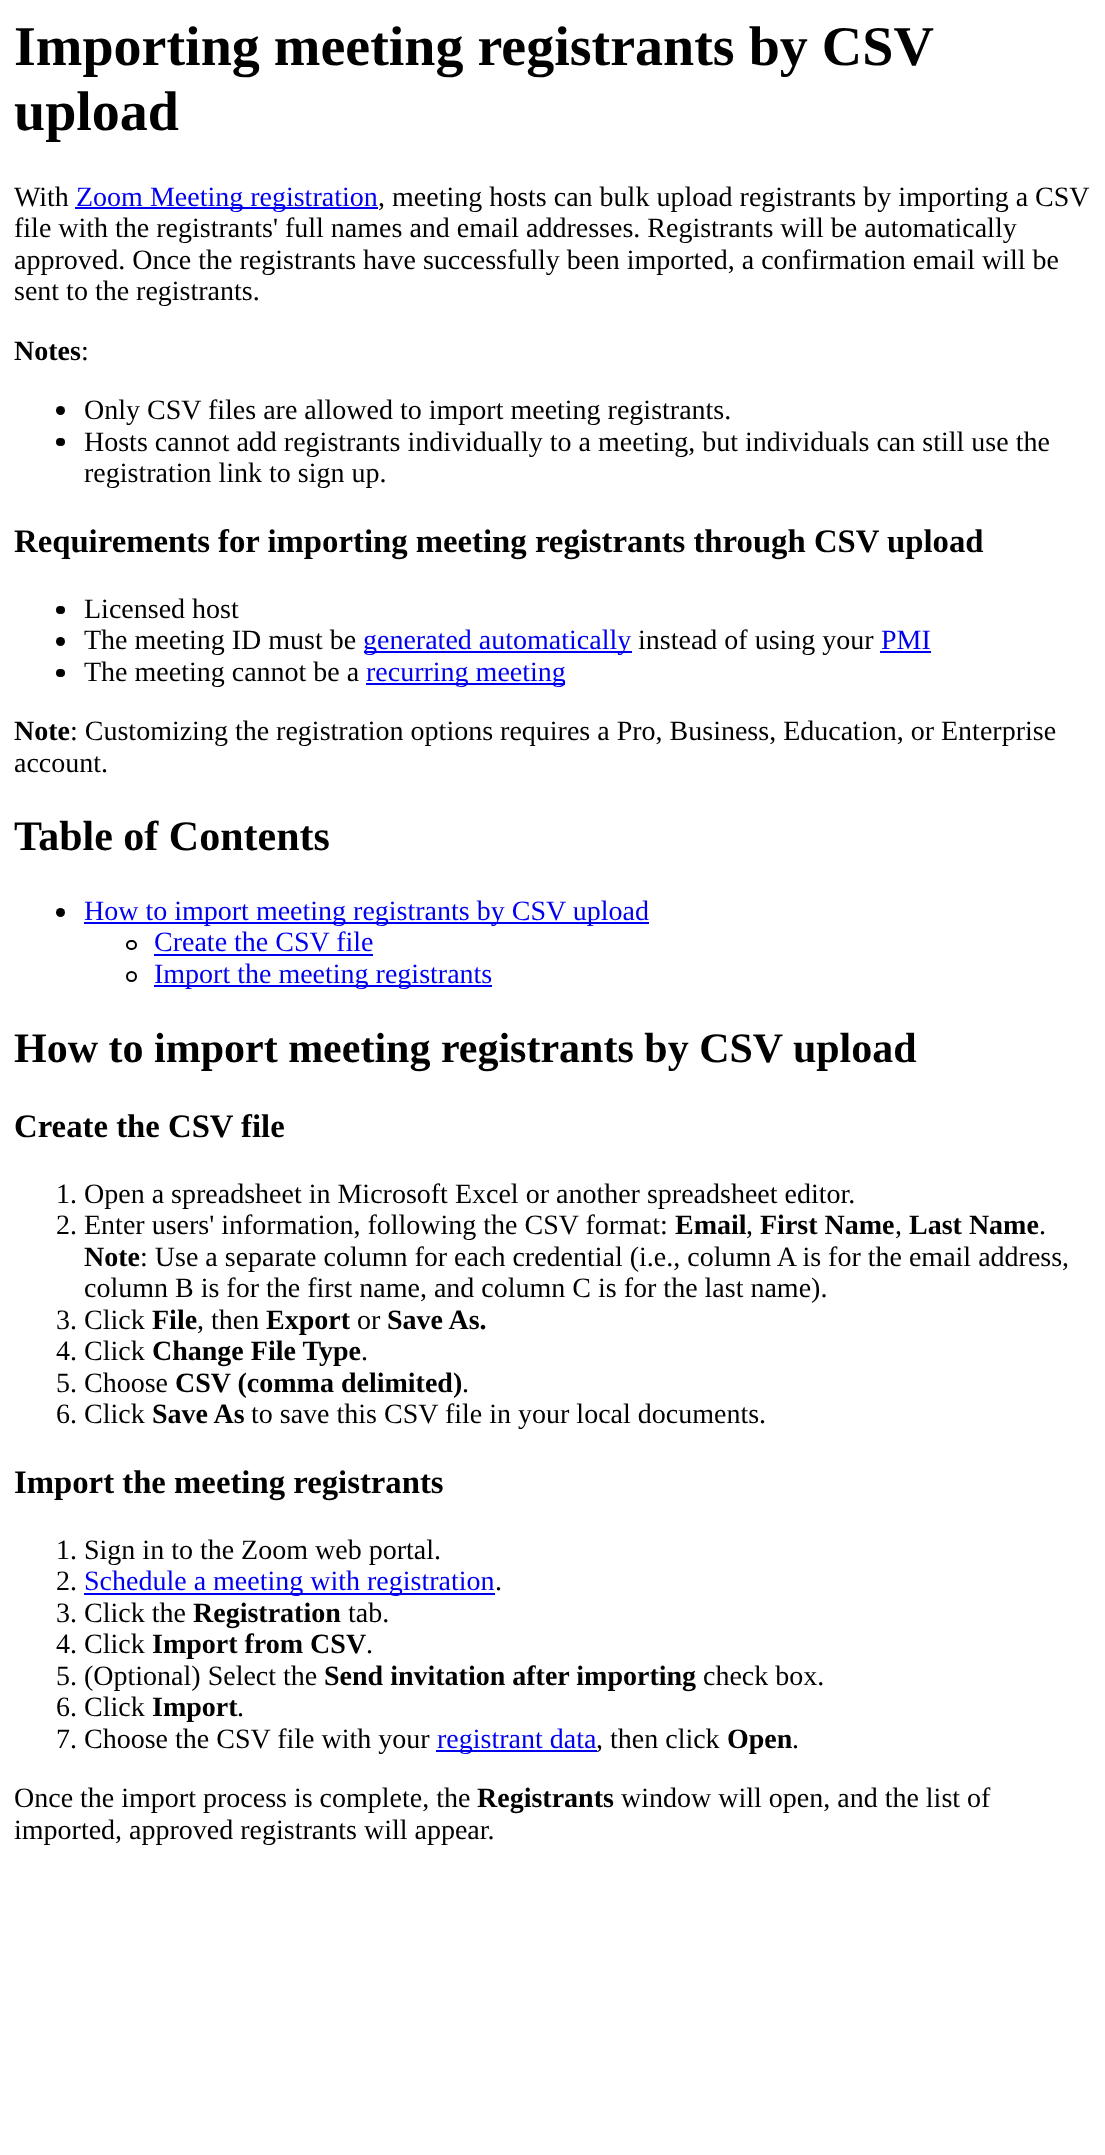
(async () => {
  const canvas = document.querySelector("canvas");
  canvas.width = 1105;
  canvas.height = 2155;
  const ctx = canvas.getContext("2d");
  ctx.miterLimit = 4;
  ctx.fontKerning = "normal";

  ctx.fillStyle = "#ffffff";
  ctx.fillRect(0, 0, 1105, 2155);
  ctx.fillStyle = "#0000ee";
  ctx.fillRect(75, 207, 303, 2);
  ctx.fillStyle = "#000000";
  ctx.beginPath();
  ctx.arc(60.5, 410.5, 4.5, 0, Math.PI * 2);
  ctx.fill();
  ctx.beginPath();
  ctx.roundRect(56, 438, 9, 8, 4);
  ctx.fill();
  ctx.beginPath();
  ctx.roundRect(56, 606, 9, 8, 4);
  ctx.fill();
  ctx.beginPath();
  ctx.arc(60.5, 641.5, 4.5, 0, Math.PI * 2);
  ctx.fill();
  ctx.fillStyle = "#0000ee";
  ctx.fillRect(364, 651, 268, 2);
  ctx.fillRect(880, 651, 51, 2);
  ctx.fillStyle = "#000000";
  ctx.beginPath();
  ctx.roundRect(56, 669, 9, 8, 4);
  ctx.fill();
  ctx.fillStyle = "#0000ee";
  ctx.fillRect(366, 683, 199, 2);
  ctx.fillStyle = "#000000";
  ctx.beginPath();
  ctx.arc(60.5, 912.5, 4.5, 0, Math.PI * 2);
  ctx.fill();
  ctx.fillStyle = "#0000ee";
  ctx.fillRect(84, 922, 565, 2);
  ctx.beginPath();
  ctx.roundRect(127, 941, 9, 8, 4);
  ctx.strokeStyle = "#000000";
  ctx.lineWidth = 2;
  ctx.stroke();
  ctx.fillRect(154, 954, 219, 2);
  ctx.beginPath();
  ctx.arc(131.5, 976.5, 4.5, 0, Math.PI * 2);
  ctx.stroke();
  for (const [x, y, w, h, color] of [
    [154, 985, 338, 2, "#0000ee"],
    [84, 1593, 411, 2, "#0000ee"],
    [436, 1750, 161, 2, "#0000ee"],
  ]) {
    ctx.fillStyle = color;
    ctx.fillRect(x, y, w, h);
  }
  ctx.font = "bold 56px Liberation Serif";
  ctx.fillStyle = "#000000";
  ctx.fillText("Importing meeting registrants by CSV", 14, 65);
  ctx.fillText("upload", 14, 130);
  ctx.font = "28px Liberation Serif";
  ctx.fillText("With", 14, 206);
  ctx.fillStyle = "#0000ee";
  ctx.fillText("Zoom Meeting registration", 76, 206);
  ctx.fillStyle = "#000000";
  for (const [text, x, y] of [
    [", meeting hosts can bulk upload registrants by importing a CSV", 378, 206],
    ["file with the registrants' full names and email addresses. Registrants will be automatically", 14, 237],
    ["approved. Once the registrants have successfully been imported, a confirmation email will be", 14, 269],
    ["sent to the registrants.", 14, 300],
  ]) {
    ctx.fillText(text, x, y);
  }
  ctx.font = "bold 28px Liberation Serif";
  ctx.fillText("Notes", 14, 360);
  ctx.font = "28px Liberation Serif";
  for (const [text, x, y] of [
    [":", 81, 360],
    ["Only CSV files are allowed to import meeting registrants.", 84, 419],
    ["Hosts cannot add registrants individually to a meeting, but individuals can still use the", 84, 451],
    ["registration link to sign up.", 84, 482],
  ]) {
    ctx.fillText(text, x, y);
  }
  ctx.font = "bold 32.75px Liberation Serif";
  ctx.fillText("Requirements for importing meeting registrants through CSV upload", 14, 552);
  ctx.font = "28px Liberation Serif";
  ctx.fillText("Licensed host", 84, 618);
  ctx.fillText("The meeting ID must be", 84, 649);
  ctx.fillStyle = "#0000ee";
  ctx.fillText("generated automatically", 363, 649);
  ctx.fillStyle = "#000000";
  ctx.fillText("instead of using your", 638, 649);
  ctx.fillStyle = "#0000ee";
  ctx.fillText("PMI", 881, 649);
  ctx.fillStyle = "#000000";
  ctx.fillText("The meeting cannot be a", 84, 681);
  ctx.fillStyle = "#0000ee";
  ctx.fillText("recurring meeting", 366, 681);
  ctx.font = "bold 28px Liberation Serif";
  ctx.fillStyle = "#000000";
  ctx.fillText("Note", 14, 740);
  ctx.font = "28px Liberation Serif";
  ctx.fillText(": Customizing the registration options requires a Pro, Business, Education, or Enterprise", 70, 740);
  ctx.fillText("account.", 14, 772);
  ctx.font = "bold 42px Liberation Serif";
  ctx.fillText("Table of Contents", 14, 850);
  ctx.font = "28px Liberation Serif";
  ctx.fillStyle = "#0000ee";
  for (const [text, x, y] of [
    ["How to import meeting registrants by CSV upload", 84, 920],
    ["Create the CSV file", 154, 951],
    ["Import the meeting registrants", 154, 983],
  ]) {
    ctx.fillText(text, x, y);
  }
  ctx.font = "bold 42px Liberation Serif";
  ctx.fillStyle = "#000000";
  ctx.fillText("How to import meeting registrants by CSV upload", 14, 1062);
  ctx.font = "bold 32.75px Liberation Serif";
  ctx.fillText("Create the CSV file", 14, 1137);
  ctx.font = "28px Liberation Serif";
  ctx.fillText("1. Open a spreadsheet in Microsoft Excel or another spreadsheet editor.", 56, 1203);
  ctx.fillText("2. Enter users' information, following the CSV format:", 56, 1234);
  ctx.font = "bold 28px Liberation Serif";
  ctx.fillText("Email", 675, 1234);
  ctx.font = "28px Liberation Serif";
  ctx.fillText(",", 746, 1234);
  ctx.font = "bold 28px Liberation Serif";
  ctx.fillText("First Name", 760, 1234);
  ctx.font = "28px Liberation Serif";
  ctx.fillText(",", 895, 1234);
  ctx.font = "bold 28px Liberation Serif";
  ctx.fillText("Last Name", 909, 1234);
  ctx.font = "28px Liberation Serif";
  ctx.fillText(".", 1039, 1234);
  ctx.font = "bold 28px Liberation Serif";
  ctx.fillText("Note", 84, 1266);
  ctx.font = "28px Liberation Serif";
  for (const [text, x, y] of [
    [": Use a separate column for each credential (i.e., column A is for the email address,", 140, 1266],
    ["column B is for the first name, and column C is for the last name).", 84, 1297],
    ["3. Click", 56, 1329],
  ]) {
    ctx.fillText(text, x, y);
  }
  ctx.font = "bold 28px Liberation Serif";
  ctx.fillText("File", 152, 1329);
  ctx.font = "28px Liberation Serif";
  ctx.fillText(", then", 197, 1329);
  ctx.font = "bold 28px Liberation Serif";
  ctx.fillText("Export", 266, 1329);
  ctx.font = "28px Liberation Serif";
  ctx.fillText("or", 357, 1329);
  ctx.font = "bold 28px Liberation Serif";
  ctx.fillText("Save As.", 387, 1329);
  ctx.font = "28px Liberation Serif";
  ctx.fillText("4. Click", 56, 1360);
  ctx.font = "bold 28px Liberation Serif";
  ctx.fillText("Change File Type", 152, 1360);
  ctx.font = "28px Liberation Serif";
  ctx.fillText(".", 361, 1360);
  ctx.fillText("5. Choose", 56, 1392);
  ctx.font = "bold 28px Liberation Serif";
  ctx.fillText("CSV (comma delimited)", 175, 1392);
  ctx.font = "28px Liberation Serif";
  ctx.fillText(".", 462, 1392);
  ctx.fillText("6. Click", 56, 1423);
  ctx.font = "bold 28px Liberation Serif";
  ctx.fillText("Save As", 152, 1423);
  ctx.font = "28px Liberation Serif";
  ctx.fillText("to save this CSV file in your local documents.", 251, 1423);
  ctx.font = "bold 32.75px Liberation Serif";
  ctx.fillText("Import the meeting registrants", 14, 1493);
  ctx.font = "28px Liberation Serif";
  ctx.fillText("1. Sign in to the Zoom web portal.", 56, 1559);
  ctx.fillText("2.", 56, 1590);
  ctx.fillStyle = "#0000ee";
  ctx.fillText("Schedule a meeting with registration", 84, 1590);
  ctx.fillStyle = "#000000";
  ctx.fillText(".", 495, 1590);
  ctx.fillText("3. Click the", 56, 1622);
  ctx.font = "bold 28px Liberation Serif";
  ctx.fillText("Registration", 193, 1622);
  ctx.font = "28px Liberation Serif";
  ctx.fillText("tab.", 348, 1622);
  ctx.fillText("4. Click", 56, 1653);
  ctx.font = "bold 28px Liberation Serif";
  ctx.fillText("Import from CSV", 152, 1653);
  ctx.font = "28px Liberation Serif";
  ctx.fillText(".", 366, 1653);
  ctx.fillText("5. (Optional) Select the", 56, 1685);
  ctx.font = "bold 28px Liberation Serif";
  ctx.fillText("Send invitation after importing", 324, 1685);
  ctx.font = "28px Liberation Serif";
  ctx.fillText("check box.", 703, 1685);
  ctx.fillText("6. Click", 56, 1716);
  ctx.font = "bold 28px Liberation Serif";
  ctx.fillText("Import", 152, 1716);
  ctx.font = "28px Liberation Serif";
  ctx.fillText(".", 237, 1716);
  ctx.fillText("7. Choose the CSV file with your", 56, 1748);
  ctx.fillStyle = "#0000ee";
  ctx.fillText("registrant data", 437, 1748);
  ctx.fillStyle = "#000000";
  ctx.fillText(", then click", 596, 1748);
  ctx.font = "bold 28px Liberation Serif";
  ctx.fillText("Open", 727, 1748);
  ctx.font = "28px Liberation Serif";
  ctx.fillText(".", 792, 1748);
  ctx.fillText("Once the import process is complete, the", 14, 1807);
  ctx.font = "bold 28px Liberation Serif";
  ctx.fillText("Registrants", 477, 1807);
  ctx.font = "28px Liberation Serif";
  ctx.fillText("window will open, and the list of", 621, 1807);
  ctx.fillText("imported, approved registrants will appear.", 14, 1839);
})();
